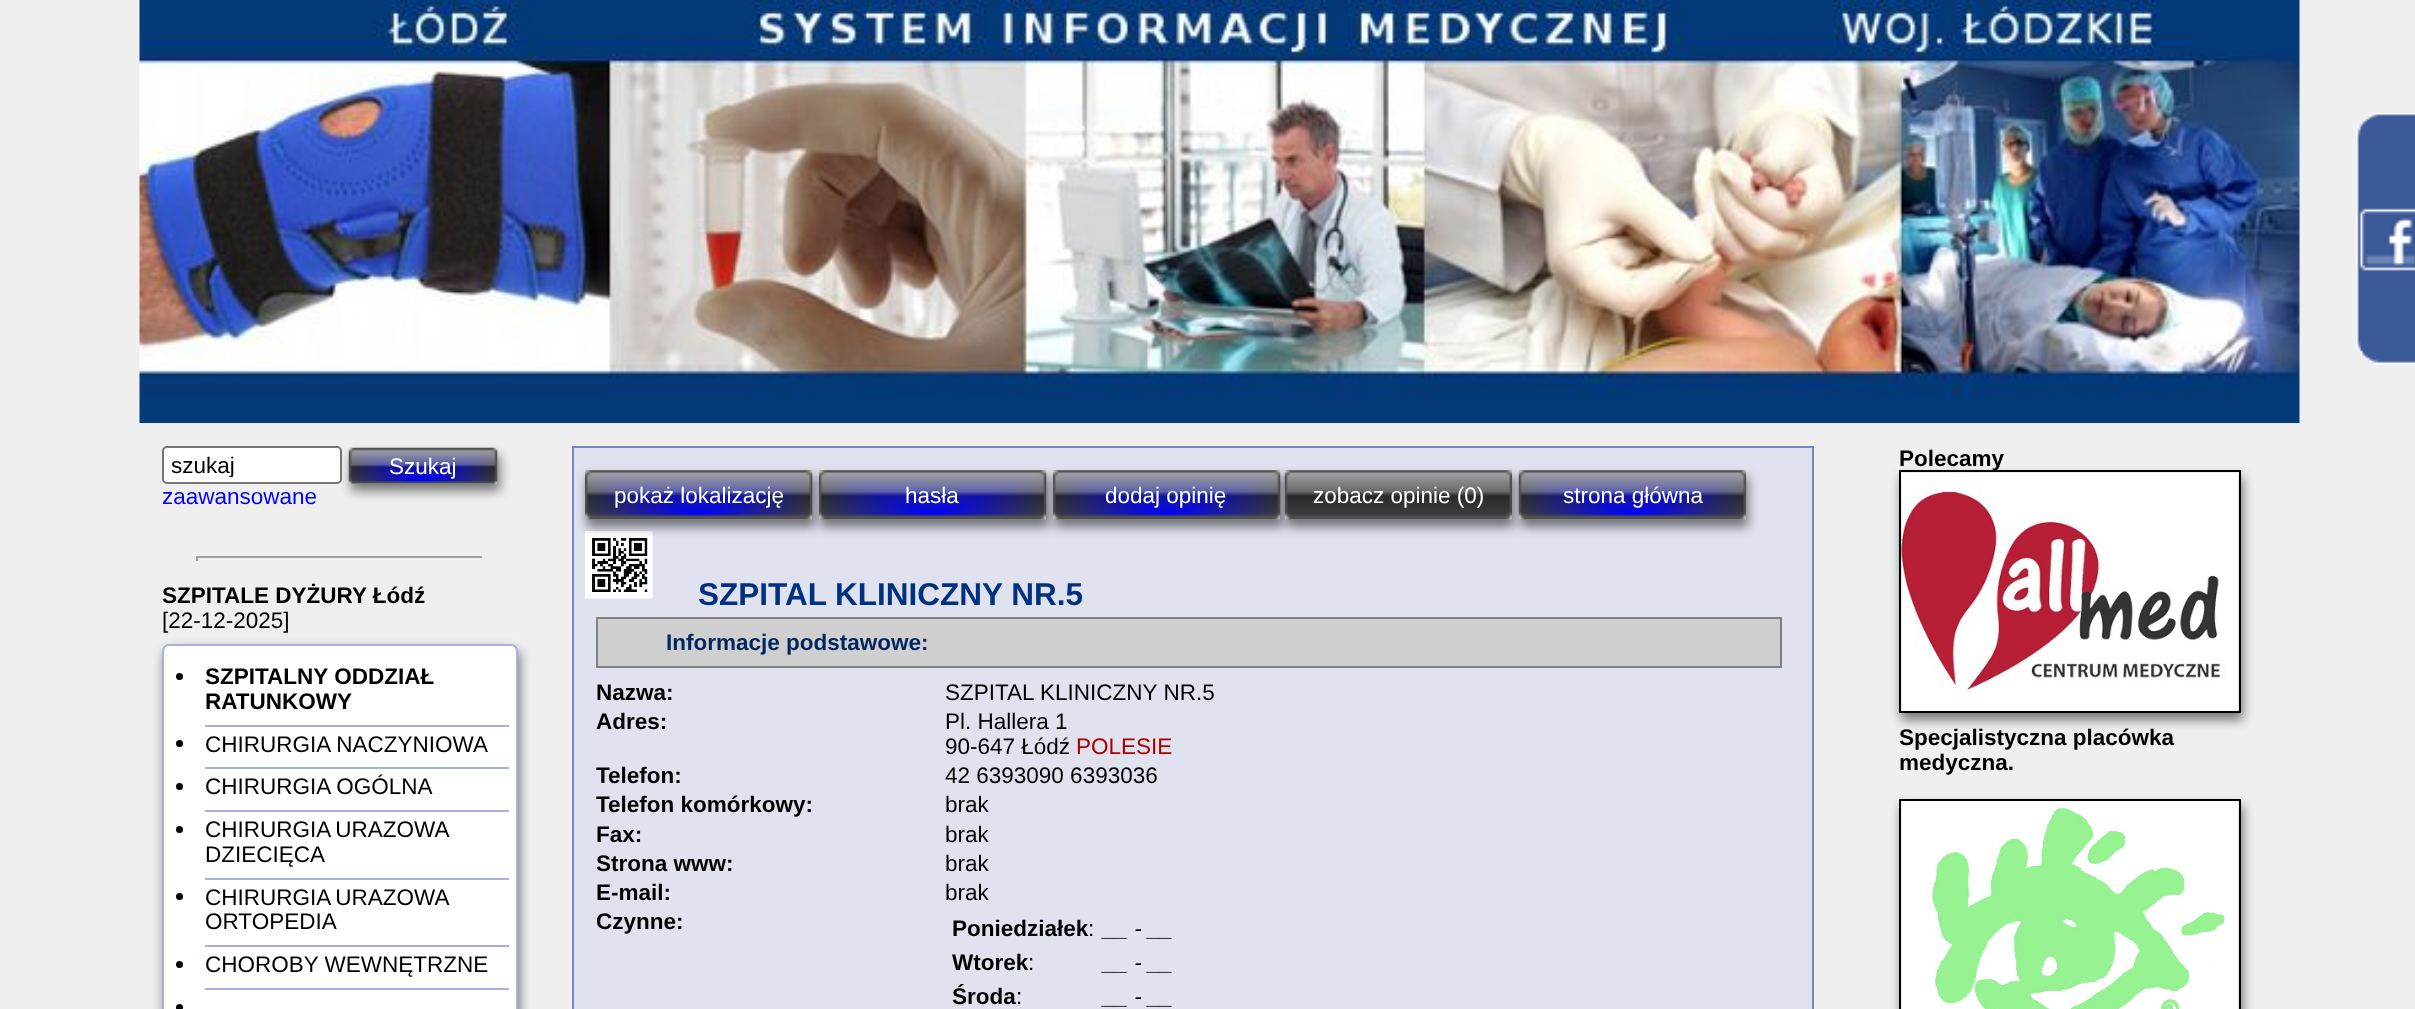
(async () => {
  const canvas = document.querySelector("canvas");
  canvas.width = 2415;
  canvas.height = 1009;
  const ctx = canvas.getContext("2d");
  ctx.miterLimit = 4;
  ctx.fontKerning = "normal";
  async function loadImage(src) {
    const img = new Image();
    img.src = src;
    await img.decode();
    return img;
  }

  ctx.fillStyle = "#efefef";
  ctx.fillRect(0, 0, 2415, 1009);
  ctx.drawImage(await loadImage("img/1.png"), 139, 0, 2161, 423);
  ctx.drawImage(await loadImage("img/2.png"), 2356, 113, 59, 252);
  ctx.fillStyle = "#ffffff";
  ctx.beginPath();
  ctx.roundRect(163, 447, 178, 36, 4);
  ctx.fill();
  ctx.strokeStyle = "#767676";
  ctx.lineWidth = 2;
  ctx.stroke();
  ctx.fillStyle = "rgba(0, 0, 0, 0.5)";
  ctx.filter = "blur(5.5px)";
  ctx.beginPath();
  ctx.rect(351, 455, 149, 36);
  ctx.fill();
  ctx.filter = "none";
  ctx.fillStyle = "#efefef";
  ctx.fillRect(349, 448, 148, 36);
  ctx.drawImage(await loadImage("img/3.png"), 348, 447, 150, 37);
  for (const [x, y, w, h, color] of [
    [196, 556, 288, 2, "#9f9f9f"],
    [482, 556, 2, 5, "#eeeeee"],
    [196, 556, 2, 5, "#9f9f9f"],
  ]) {
    ctx.fillStyle = color;
    ctx.fillRect(x, y, w, h);
  }
  ctx.fillStyle = "rgba(0, 0, 0, 0.5)";
  ctx.filter = "blur(5.5px)";
  ctx.beginPath();
  ctx.roundRect(164, 650, 356, 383, 7);
  ctx.fill();
  ctx.filter = "none";
  ctx.fillStyle = "#ffffff";
  ctx.beginPath();
  ctx.roundRect(163, 645, 354, 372, 6);
  ctx.fill();
  ctx.strokeStyle = "#a7b1df";
  ctx.stroke();
  ctx.fillStyle = "#000000";
  ctx.beginPath();
  ctx.arc(179.5, 676.5, 3.5, 0, Math.PI * 2);
  ctx.fill();
  ctx.fillStyle = "#a7b1df";
  ctx.fillRect(205, 725, 304, 2);
  ctx.fillStyle = "#000000";
  ctx.beginPath();
  ctx.arc(179.5, 743.5, 3.5, 0, Math.PI * 2);
  ctx.fill();
  ctx.fillStyle = "#a7b1df";
  ctx.fillRect(205, 767, 304, 2);
  ctx.fillStyle = "#000000";
  ctx.beginPath();
  ctx.arc(179.5, 786.5, 3.5, 0, Math.PI * 2);
  ctx.fill();
  ctx.fillStyle = "#a7b1df";
  ctx.fillRect(205, 810, 304, 2);
  ctx.fillStyle = "#000000";
  ctx.beginPath();
  ctx.arc(179.5, 829.5, 3.5, 0, Math.PI * 2);
  ctx.fill();
  ctx.fillStyle = "#a7b1df";
  ctx.fillRect(205, 878, 304, 2);
  ctx.fillStyle = "#000000";
  ctx.beginPath();
  ctx.arc(179.5, 896.5, 3.5, 0, Math.PI * 2);
  ctx.fill();
  ctx.fillStyle = "#a7b1df";
  ctx.fillRect(205, 945, 304, 2);
  ctx.fillStyle = "#000000";
  ctx.beginPath();
  ctx.arc(179.5, 964.5, 3.5, 0, Math.PI * 2);
  ctx.fill();
  ctx.fillStyle = "#a7b1df";
  ctx.fillRect(205, 988, 304, 2);
  ctx.fillStyle = "#000000";
  ctx.beginPath();
  ctx.arc(179.5, 1007.5, 3.5, 0, Math.PI * 2);
  ctx.fill();
  ctx.fillStyle = "#e0e2ef";
  ctx.beginPath();
  ctx.rect(573, 447, 1240, 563);
  ctx.fill();
  ctx.strokeStyle = "#7785bf";
  ctx.stroke();
  ctx.drawImage(await loadImage("img/9.png"), 585, 531, 68, 68);
  ctx.fillStyle = "rgba(0, 0, 0, 0.5)";
  ctx.filter = "blur(5.5px)";
  ctx.beginPath();
  ctx.rect(587, 477, 228, 50);
  ctx.fill();
  ctx.filter = "none";
  ctx.fillStyle = "#bfbfbf";
  ctx.fillRect(585, 470, 227, 50);
  ctx.drawImage(await loadImage("img/4.png"), 585, 470, 228, 50);
  ctx.fillStyle = "rgba(0, 0, 0, 0.5)";
  ctx.filter = "blur(5.5px)";
  ctx.beginPath();
  ctx.rect(821, 477, 228, 50);
  ctx.fill();
  ctx.filter = "none";
  ctx.fillStyle = "#bfbfbf";
  ctx.fillRect(819, 470, 227, 50);
  ctx.drawImage(await loadImage("img/5.png"), 819, 470, 228, 50);
  ctx.fillStyle = "rgba(0, 0, 0, 0.5)";
  ctx.filter = "blur(5.5px)";
  ctx.beginPath();
  ctx.rect(1055, 477, 228, 50);
  ctx.fill();
  ctx.filter = "none";
  ctx.fillStyle = "#bfbfbf";
  ctx.fillRect(1053, 470, 227, 50);
  ctx.drawImage(await loadImage("img/6.png"), 1053, 470, 228, 50);
  ctx.fillStyle = "rgba(0, 0, 0, 0.5)";
  ctx.filter = "blur(5.5px)";
  ctx.beginPath();
  ctx.rect(1287, 477, 227, 50);
  ctx.fill();
  ctx.filter = "none";
  ctx.fillStyle = "#bfbfbf";
  ctx.fillRect(1285, 470, 227, 50);
  ctx.drawImage(await loadImage("img/7.png"), 1284, 470, 228, 50);
  ctx.fillStyle = "rgba(0, 0, 0, 0.5)";
  ctx.filter = "blur(5.5px)";
  ctx.beginPath();
  ctx.rect(1521, 477, 227, 50);
  ctx.fill();
  ctx.filter = "none";
  ctx.fillStyle = "#bfbfbf";
  ctx.fillRect(1519, 470, 227, 50);
  ctx.drawImage(await loadImage("img/8.png"), 1518, 470, 228, 50);
  ctx.fillStyle = "#cfcfcf";
  ctx.beginPath();
  ctx.rect(597, 618, 1184, 49);
  ctx.fill();
  ctx.strokeStyle = "#808080";
  ctx.stroke();
  ctx.fillStyle = "rgba(0, 0, 0, 0.5)";
  ctx.filter = "blur(5.5px)";
  ctx.beginPath();
  ctx.rect(1901, 477, 342, 243);
  ctx.fill();
  ctx.filter = "none";
  ctx.strokeStyle = "#000000";
  ctx.strokeRect(1900, 471, 340, 241);
  ctx.drawImage(await loadImage("img/10.png"), 1901, 472, 338, 239);
  ctx.filter = "blur(5.5px)";
  ctx.beginPath();
  ctx.rect(1901, 806, 342, 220);
  ctx.fill();
  ctx.filter = "none";
  ctx.strokeRect(1900, 800, 340, 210);
  ctx.drawImage(await loadImage("img/11.png"), 1901, 801, 338, 208);
  ctx.save();
  ctx.beginPath();
  ctx.rect(171, 452, 162, 25);
  ctx.clip();
  ctx.font = "22.5px Liberation Sans";
  ctx.fillStyle = "#000000";
  ctx.fillText("szukaj", 171, 473);
  ctx.restore();
  ctx.font = "22.5px Liberation Sans";
  ctx.fillStyle = "#ffffff";
  ctx.fillText("Szukaj", 389, 474);
  ctx.fillStyle = "#0000ff";
  ctx.fillText("zaawansowane", 162, 504);
  ctx.font = "bold 22.5px Liberation Sans";
  ctx.fillStyle = "#000000";
  ctx.fillText("SZPITALE DYŻURY Łódź", 162, 603);
  ctx.font = "22.5px Liberation Sans";
  ctx.fillText("[22-12-2025]", 162, 628);
  ctx.font = "bold 22.5px Liberation Sans";
  ctx.fillText("SZPITALNY ODDZIAŁ", 205, 684);
  ctx.fillText("RATUNKOWY", 205, 709);
  ctx.font = "22.5px Liberation Sans";
  ctx.fillText("CHIRURGIA NACZYNIOWA", 205, 752);
  ctx.fillText("CHIRURGIA OGÓLNA", 205, 794);
  ctx.wordSpacing = "-1px";
  ctx.fillText("CHIRURGIA URAZOWA", 205, 837);
  ctx.wordSpacing = "0px";
  ctx.fillText("DZIECIĘCA", 205, 862);
  ctx.wordSpacing = "-1px";
  ctx.fillText("CHIRURGIA URAZOWA", 205, 905);
  ctx.wordSpacing = "0px";
  ctx.fillText("ORTOPEDIA", 205, 929);
  ctx.fillText("CHOROBY WEWNĘTRZNE", 205, 972);
  ctx.fillStyle = "#ffffff";
  for (const [text, x, y] of [
    ["pokaż lokalizację", 614, 503],
    ["hasła", 905, 503],
    ["dodaj opinię", 1105, 503],
    ["zobacz opinie (0)", 1313, 503],
    ["strona główna", 1563, 503],
  ]) {
    ctx.fillText(text, x, y);
  }
  ctx.font = "bold 31.5px Liberation Sans";
  ctx.fillStyle = "#00317f";
  ctx.fillText("SZPITAL KLINICZNY NR.5", 698, 605);
  ctx.font = "bold 22.5px Liberation Sans";
  ctx.fillStyle = "#00255f";
  ctx.fillText("Informacje podstawowe:", 666, 650);
  ctx.fillStyle = "#000000";
  ctx.fillText("Nazwa:", 596, 700);
  ctx.font = "22.5px Liberation Sans";
  ctx.fillText("SZPITAL KLINICZNY NR.5", 945, 700);
  ctx.font = "bold 22.5px Liberation Sans";
  ctx.fillText("Adres:", 596, 729);
  ctx.font = "22.5px Liberation Sans";
  ctx.fillText("Pl. Hallera 1", 945, 729);
  ctx.fillText("90-647 Łódź", 945, 754);
  ctx.fillStyle = "#aa0000";
  ctx.fillText("POLESIE", 1076, 754);
  ctx.font = "bold 22.5px Liberation Sans";
  ctx.fillStyle = "#000000";
  ctx.fillText("Telefon:", 596, 783);
  ctx.font = "22.5px Liberation Sans";
  ctx.fillText("42 6393090 6393036", 945, 783);
  ctx.font = "bold 22.5px Liberation Sans";
  ctx.fillText("Telefon komórkowy:", 596, 812);
  ctx.font = "22.5px Liberation Sans";
  ctx.fillText("brak", 945, 812);
  ctx.font = "bold 22.5px Liberation Sans";
  ctx.fillText("Fax:", 596, 842);
  ctx.font = "22.5px Liberation Sans";
  ctx.fillText("brak", 945, 842);
  ctx.font = "bold 22.5px Liberation Sans";
  ctx.fillText("Strona www:", 596, 871);
  ctx.font = "22.5px Liberation Sans";
  ctx.fillText("brak", 945, 871);
  ctx.font = "bold 22.5px Liberation Sans";
  ctx.fillText("E-mail:", 596, 900);
  ctx.font = "22.5px Liberation Sans";
  ctx.fillText("brak", 945, 900);
  ctx.font = "bold 22.5px Liberation Sans";
  ctx.fillText("Czynne:", 596, 929);
  ctx.fillText("Poniedziałek", 952, 936);
  ctx.font = "22.5px Liberation Sans";
  ctx.fillText(":", 1088, 936);
  ctx.font = "italic 22.5px Liberation Sans";
  ctx.fillText("__ - __", 1103, 936);
  ctx.font = "bold 22.5px Liberation Sans";
  ctx.fillText("Wtorek", 952, 970);
  ctx.font = "22.5px Liberation Sans";
  ctx.fillText(":", 1028, 970);
  ctx.font = "italic 22.5px Liberation Sans";
  ctx.fillText("__ - __", 1103, 970);
  ctx.font = "bold 22.5px Liberation Sans";
  ctx.fillText("Środa", 952, 1004);
  ctx.font = "22.5px Liberation Sans";
  ctx.fillText(":", 1016, 1004);
  ctx.font = "italic 22.5px Liberation Sans";
  ctx.fillText("__ - __", 1103, 1004);
  ctx.font = "bold 22.5px Liberation Sans";
  for (const [text, x, y] of [
    ["Polecamy", 1899, 466],
    ["Specjalistyczna placówka", 1899, 745],
    ["medyczna.", 1899, 770],
  ]) {
    ctx.fillText(text, x, y);
  }
})();
